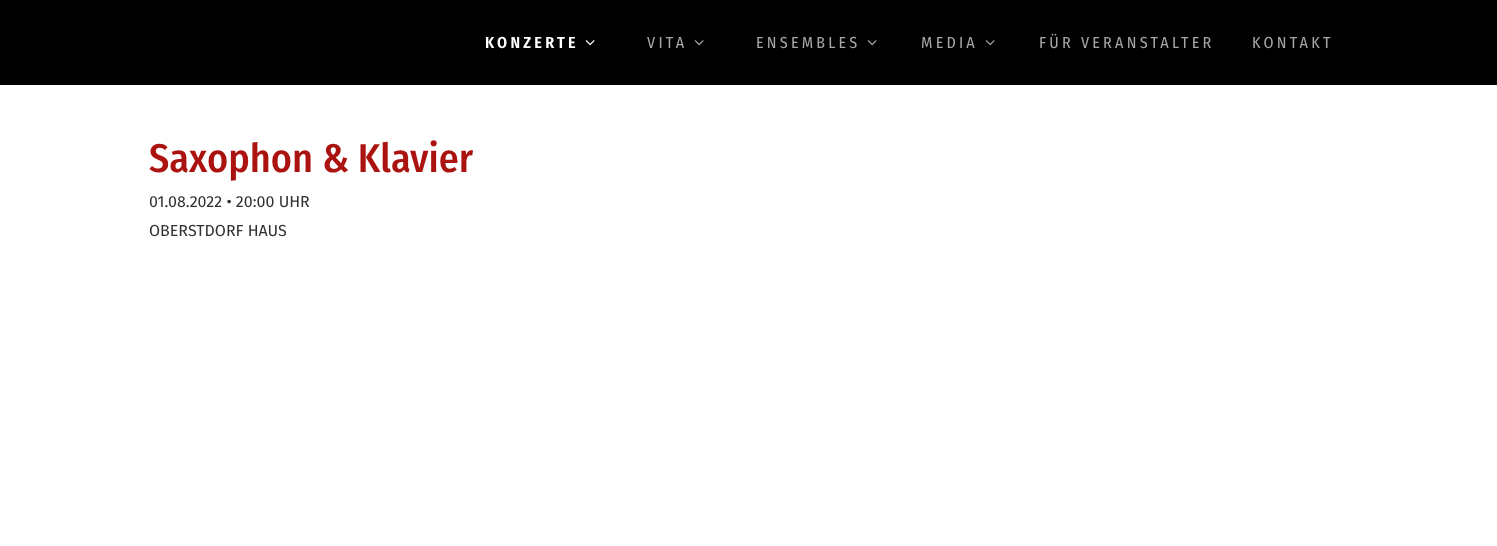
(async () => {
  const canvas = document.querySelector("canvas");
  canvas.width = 1497;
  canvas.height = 546;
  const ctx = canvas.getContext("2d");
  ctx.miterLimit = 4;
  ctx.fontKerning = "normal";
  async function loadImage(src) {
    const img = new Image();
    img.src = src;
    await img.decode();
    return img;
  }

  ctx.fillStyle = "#ffffff";
  ctx.fillRect(0, 0, 1497, 546);
  ctx.fillStyle = "#000000";
  ctx.fillRect(0, 0, 1497, 85);
  ctx.drawImage(await loadImage("img/1.png"), 585, 40, 10, 6);
  ctx.drawImage(await loadImage("img/2.png"), 694, 40, 10, 6);
  ctx.drawImage(await loadImage("img/2.png"), 867, 40, 10, 6);
  ctx.drawImage(await loadImage("img/2.png"), 985, 40, 10, 6);
  ctx.letterSpacing = "3.25px";
  ctx.font = "600 16px Fira Sans Condensed";
  ctx.fillStyle = "#ffffff";
  ctx.fillText("KONZERTE", 485, 48);
  ctx.font = "16px Fira Sans Condensed";
  ctx.fillStyle = "#a6a6a6";
  for (const [text, x, y] of [
    ["VITA", 647, 48],
    ["ENSEMBLES", 756, 48],
    ["MEDIA", 921, 48],
    ["FÜR VERANSTALTER", 1039, 48],
    ["KONTAKT", 1252, 48],
  ]) {
    ctx.fillText(text, x, y);
  }
  ctx.letterSpacing = "0px";
  ctx.font = "500 40px Fira Sans Condensed";
  ctx.fillStyle = "#aa1310";
  ctx.fillText("Saxophon & Klavier", 149, 172);
  ctx.font = "16px Fira Sans";
  ctx.fillStyle = "#2e3033";
  ctx.fillText("01.08.2022 • 20:00 UHR", 149, 207);
  ctx.fillText("OBERSTDORF HAUS", 149, 236);
})();
